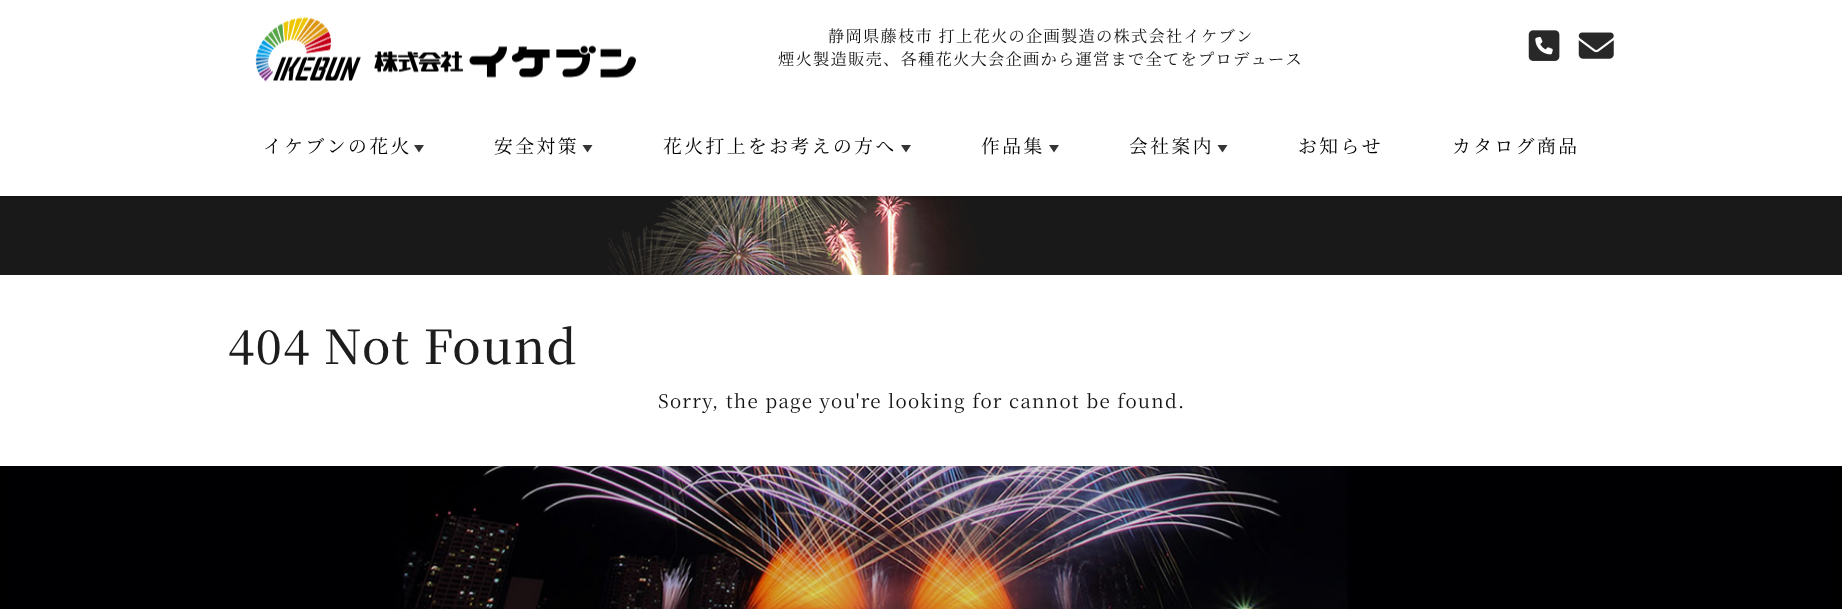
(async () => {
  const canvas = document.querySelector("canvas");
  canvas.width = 1842;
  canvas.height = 609;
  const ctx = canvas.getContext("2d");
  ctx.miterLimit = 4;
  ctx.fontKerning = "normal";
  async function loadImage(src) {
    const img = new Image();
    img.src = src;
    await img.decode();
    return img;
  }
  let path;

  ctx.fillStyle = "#ffffff";
  ctx.fillRect(0, 0, 1842, 609);
  ctx.drawImage(await loadImage("img/4.png"), 0, 196, 1842, 79);
  ctx.fillStyle = "rgba(0, 0, 0, 0.18)";
  ctx.filter = "blur(1px)";
  ctx.beginPath();
  ctx.rect(0, 3, 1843, 196);
  ctx.fill();
  ctx.filter = "none";
  ctx.fillStyle = "#ffffff";
  ctx.fillRect(0, 1, 1842, 195);
  ctx.drawImage(await loadImage("img/1.png"), 255, 17, 381, 65);
  ctx.drawImage(await loadImage("img/2.png"), 1528, 30, 32, 31);
  ctx.drawImage(await loadImage("img/3.png"), 1578, 32, 36, 27);
  ctx.fillStyle = "#353535";
  path = new Path2D("M414 145H424L419 152.5Z");
  ctx.fill(path);
  path = new Path2D("M582.5 145H592.5L587.5 152.5Z");
  ctx.fill(path);
  path = new Path2D("M901 145H911L906 152.5Z");
  ctx.fill(path);
  path = new Path2D("M1049 145H1059L1054 152.5Z");
  ctx.fill(path);
  path = new Path2D("M1217.5 145H1227.5L1222.5 152.5Z");
  ctx.fill(path);
  ctx.drawImage(await loadImage("img/5.png"), 0, 466, 1842, 143);
  ctx.letterSpacing = "1.25px";
  ctx.font = "16.25px Noto Serif JP";
  ctx.fillStyle = "#131313";
  ctx.fillText("静岡県藤枝市 打上花火の企画製造の株式会社イケブン", 828, 42);
  ctx.fillText("煙火製造販売、各種花火大会企画から運営まで全てをプロデュース", 778, 65);
  ctx.letterSpacing = "2.5px";
  ctx.font = "18.75px Noto Serif JP";
  ctx.fillStyle = "#020202";
  for (const [text, x, y] of [
    ["イケブンの花火", 263, 153],
    ["安全対策", 494, 153],
    ["花火打上をお考えの方へ", 663, 153],
    ["作品集", 981, 153],
    ["会社案内", 1129, 153],
    ["お知らせ", 1298, 153],
    ["カタログ商品", 1452, 153],
  ]) {
    ctx.fillText(text, x, y);
  }
  ctx.letterSpacing = "1.25px";
  ctx.font = "500 47px Noto Serif JP";
  ctx.fillStyle = "#1d1d1d";
  ctx.fillText("404 Not Found", 228, 364);
  ctx.wordSpacing = "0.25px";
  ctx.font = "18.75px Noto Serif JP";
  ctx.fillStyle = "#131313";
  ctx.fillText("Sorry, the page you're looking for cannot be found.", 658, 408);
})();
